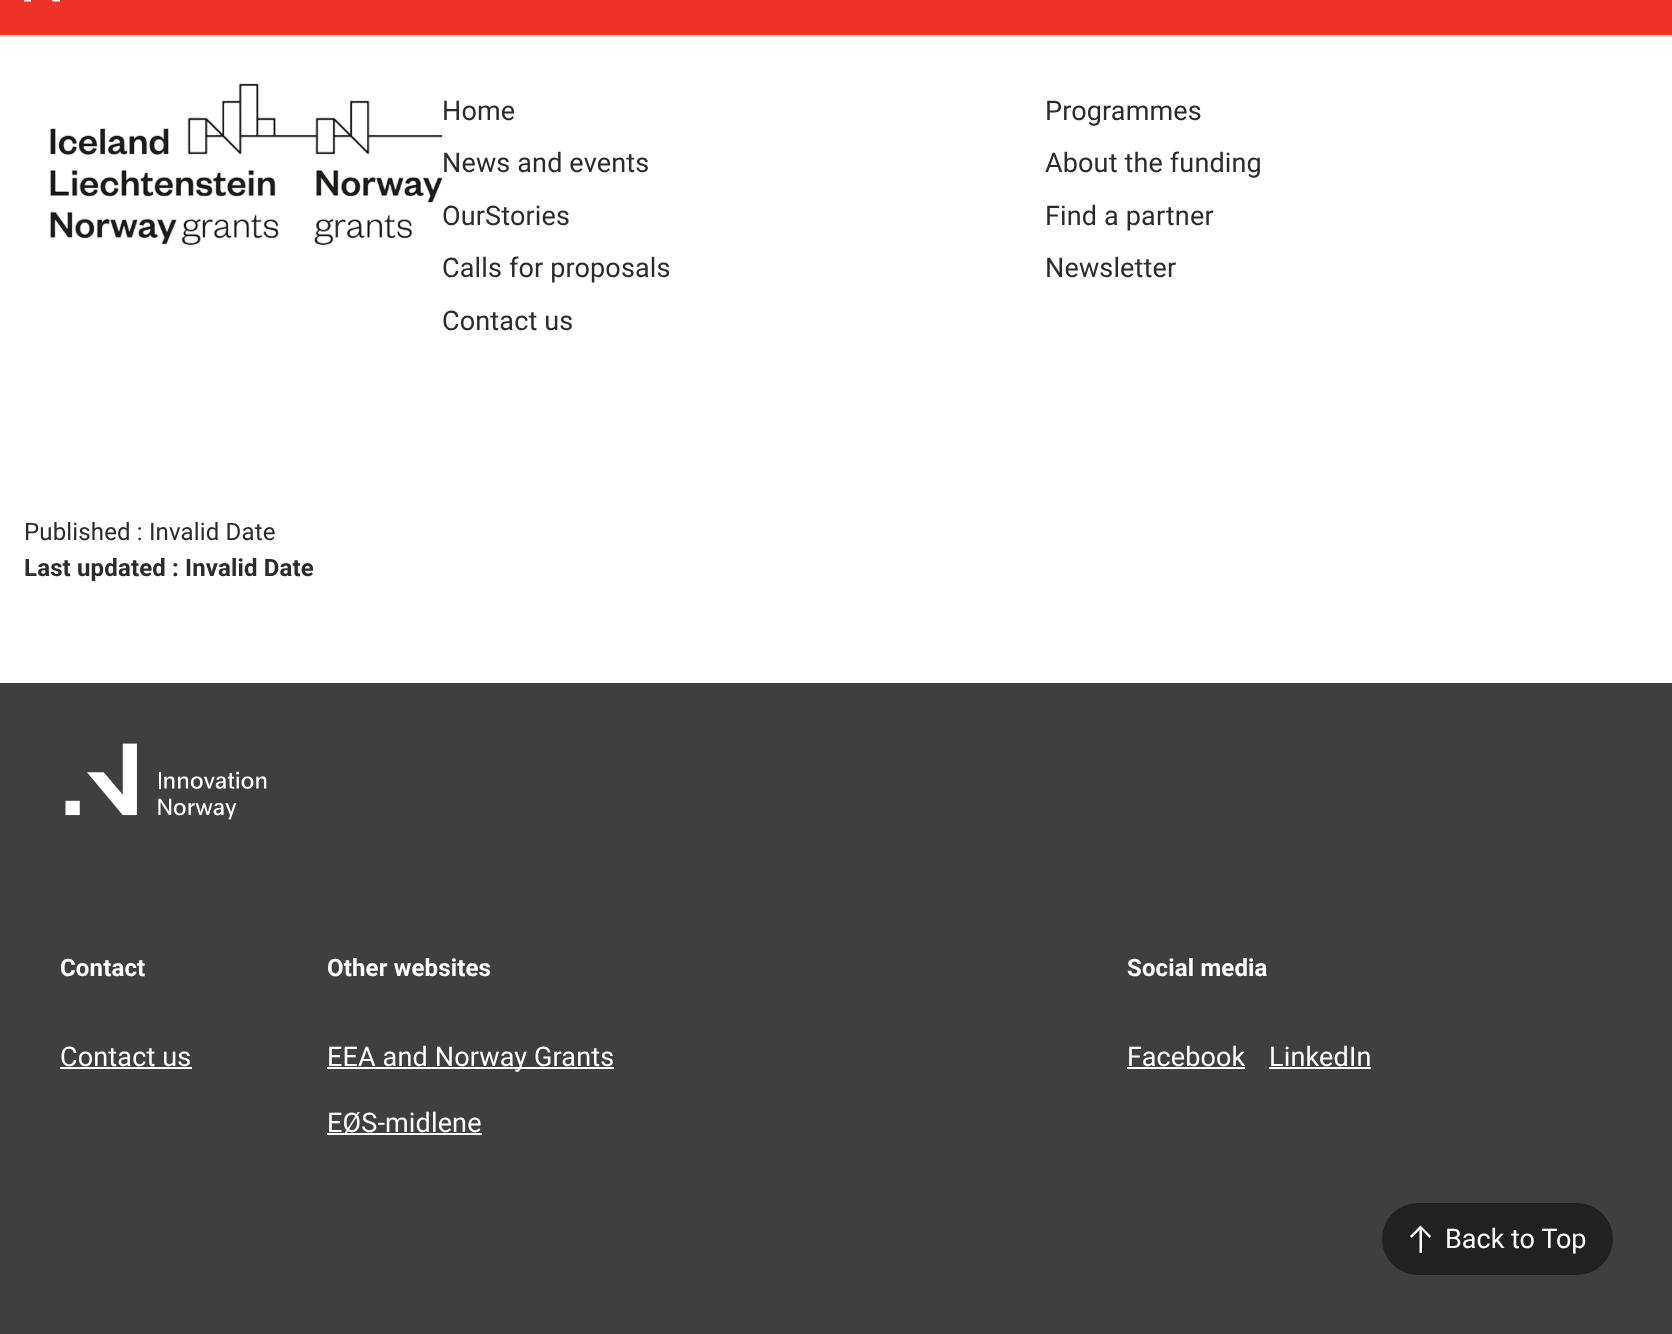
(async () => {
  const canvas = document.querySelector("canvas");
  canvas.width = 1672;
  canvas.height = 1334;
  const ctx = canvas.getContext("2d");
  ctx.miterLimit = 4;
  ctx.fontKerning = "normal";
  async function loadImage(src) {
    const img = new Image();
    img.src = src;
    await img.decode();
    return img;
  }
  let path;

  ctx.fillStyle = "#ffffff";
  ctx.fillRect(0, 0, 1672, 1334);
  ctx.fillStyle = "#ed3426";
  ctx.fillRect(0, 0, 1672, 35);
  ctx.fillStyle = "#d9d9d6";
  ctx.fillRect(0, 35, 1672, 2);
  ctx.fillStyle = "#ffffff";
  path = new Path2D("M24-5.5H31V1.5H24ZM53-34.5H60V1.5H53L35-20H43L53-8.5Z");
  ctx.fill(path, "evenodd");
  ctx.drawImage(await loadImage("img/1.png"), 50, 83, 393, 163);
  ctx.fillStyle = "#3f3f3f";
  ctx.fillRect(0, 683, 1672, 651);
  ctx.drawImage(await loadImage("img/2.png"), 65, 743, 202, 77);
  for (const [x, y, w, h, color] of [
    [60, 1067, 132, 2, "#ffffff"],
    [327, 1067, 287, 2, "#ffffff"],
    [327, 1133, 155, 2, "#ffffff"],
    [1127, 1067, 118, 2, "#ffffff"],
    [1269, 1067, 102, 2, "#ffffff"],
  ]) {
    ctx.fillStyle = color;
    ctx.fillRect(x, y, w, h);
  }
  ctx.fillStyle = "#212121";
  ctx.beginPath();
  ctx.roundRect(1382, 1203, 231, 72, 36);
  ctx.fill();
  ctx.fillStyle = "#ffffff";
  path = new Path2D("M1421.5 1226.5L1420.5 1225.5L1410 1236L1411.5 1238L1419.5 1230V1253H1422V1230L1429.5 1238L1431 1236Z");
  ctx.fill(path);
  ctx.letterSpacing = "0.15px";
  ctx.font = "27px Roboto";
  ctx.fillStyle = "#2b2b2b";
  for (const [text, x, y] of [
    ["Home", 442, 120],
    ["Programmes", 1045, 120],
    ["News and events", 442, 172],
    ["About the funding", 1045, 172],
    ["OurStories", 442, 225],
    ["Find a partner", 1045, 225],
    ["Calls for proposals", 442, 277],
    ["Newsletter", 1045, 277],
    ["Contact us", 442, 330],
  ]) {
    ctx.fillText(text, x, y);
  }
  ctx.font = "24px Roboto";
  ctx.fillText("Published : Invalid Date", 24, 540);
  ctx.font = "bold 24px Roboto";
  ctx.fillText("Last updated : Invalid Date", 24, 576);
  ctx.fillStyle = "#ffffff";
  ctx.fillText("Contact", 60, 976);
  ctx.font = "27px Roboto";
  ctx.fillText("Contact us", 60, 1066);
  ctx.font = "bold 24px Roboto";
  ctx.fillText("Other websites", 327, 976);
  ctx.font = "27px Roboto";
  ctx.fillText("EEA and Norway Grants", 327, 1066);
  ctx.fillText("EØS-midlene", 327, 1132);
  ctx.font = "bold 24px Roboto";
  ctx.fillText("Social media", 1127, 976);
  ctx.font = "27px Roboto";
  ctx.fillText("Facebook", 1127, 1066);
  ctx.fillText("LinkedIn", 1269, 1066);
  ctx.letterSpacing = "0px";
  ctx.fillText("Back to Top", 1445, 1248);
})();
